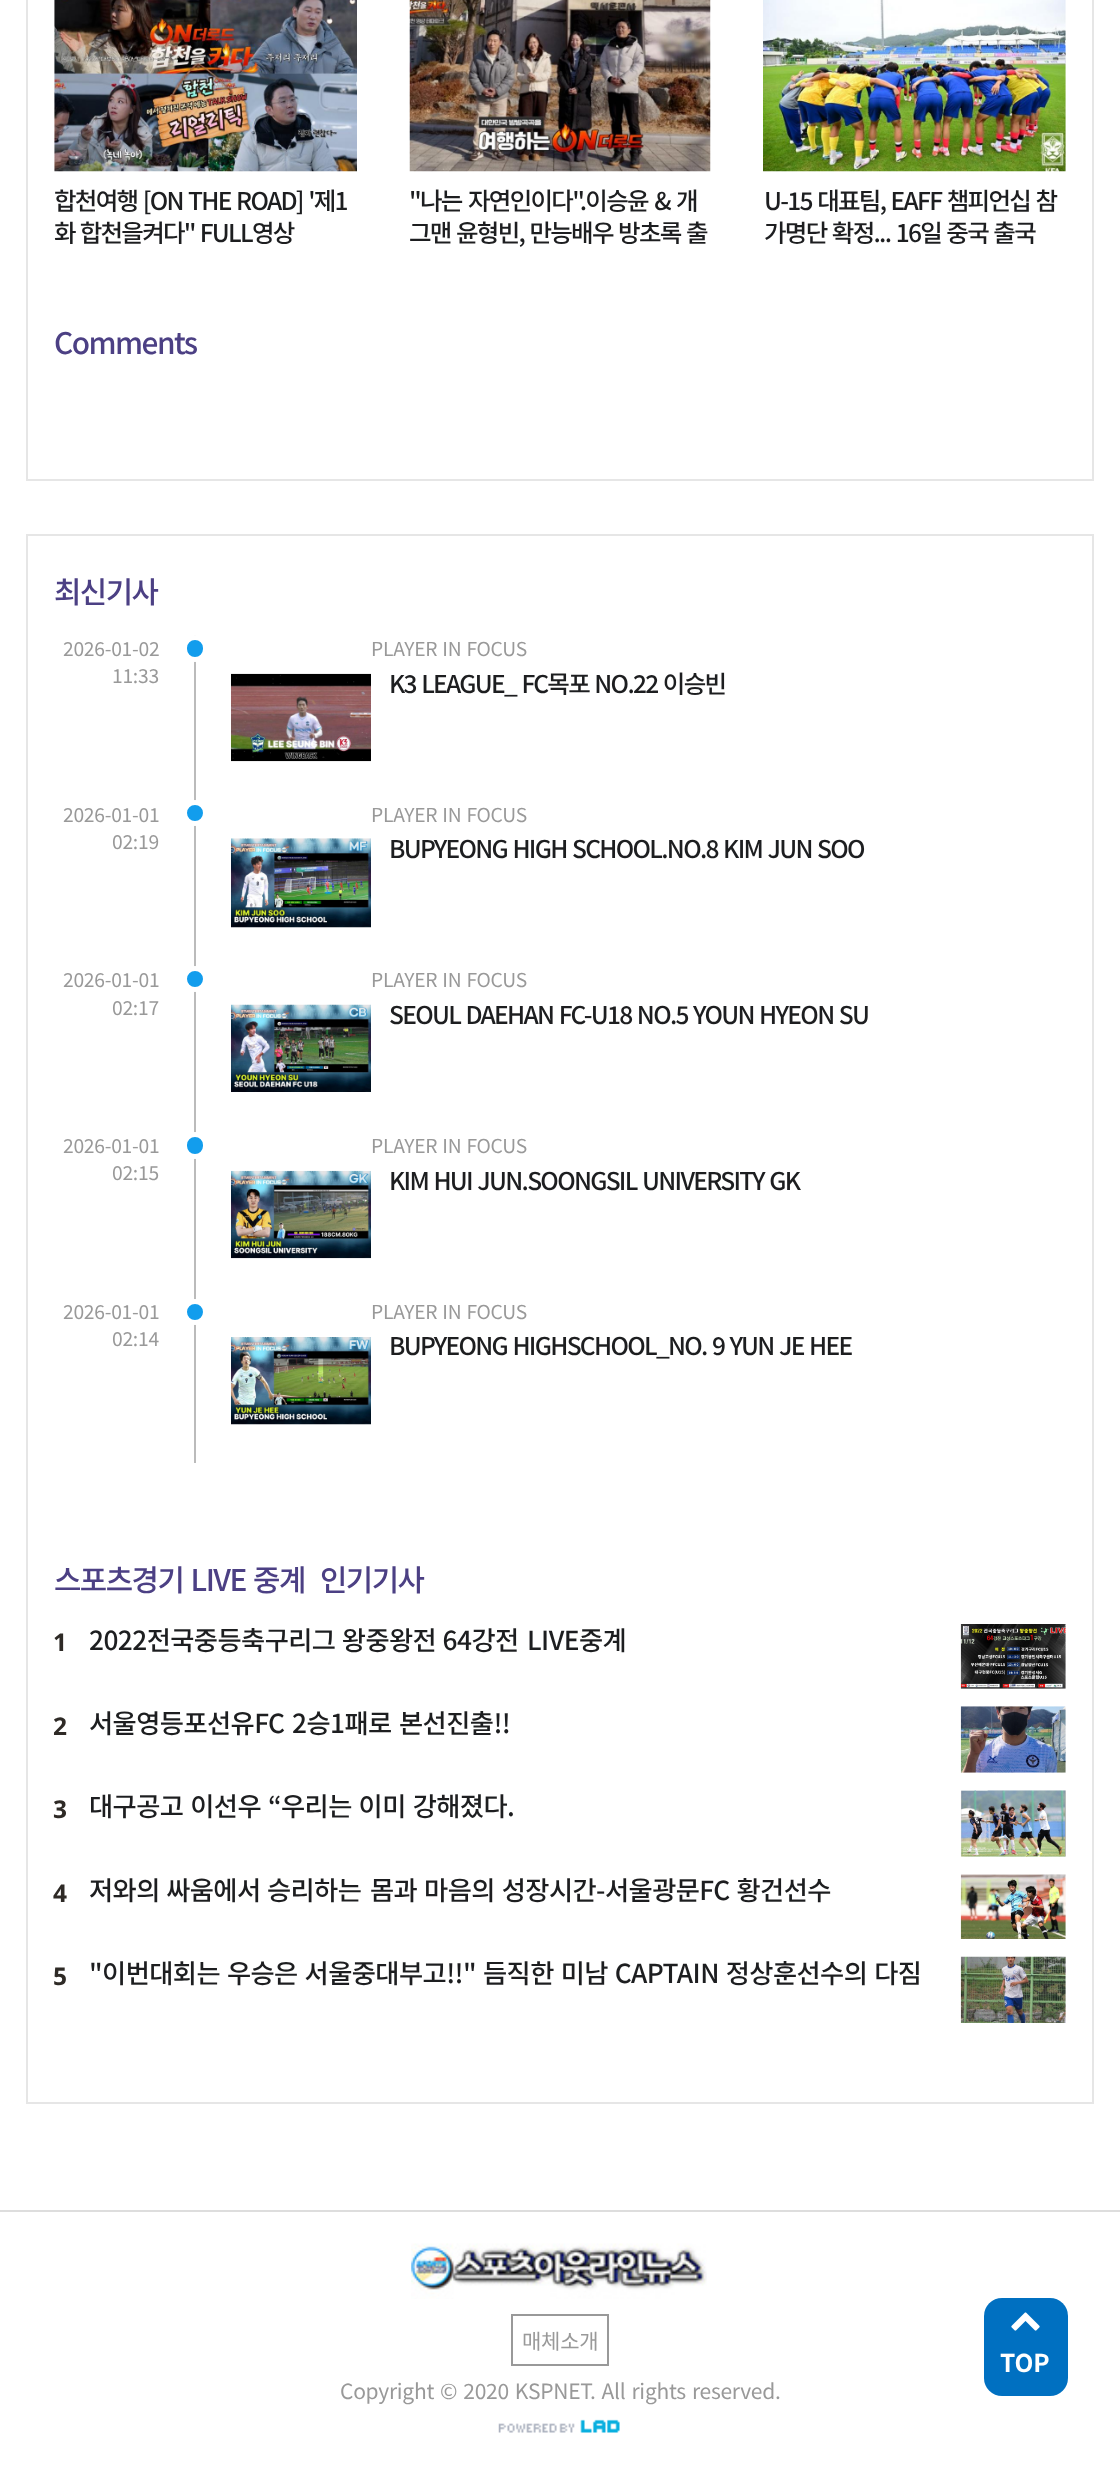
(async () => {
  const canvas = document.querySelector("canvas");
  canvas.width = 1120;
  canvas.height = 2473;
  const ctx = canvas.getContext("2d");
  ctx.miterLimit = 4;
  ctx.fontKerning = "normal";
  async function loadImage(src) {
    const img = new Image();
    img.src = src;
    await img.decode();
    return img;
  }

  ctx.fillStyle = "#ffffff";
  ctx.fillRect(0, 0, 1120, 2473);
  ctx.strokeStyle = "#e6e6e6";
  ctx.lineWidth = 2;
  ctx.strokeRect(27, -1, 1066, 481);
  ctx.drawImage(await loadImage("img/1.png"), 54, 0, 303, 172);
  ctx.drawImage(await loadImage("img/2.png"), 409, 0, 302, 172);
  ctx.drawImage(await loadImage("img/3.png"), 763, 0, 303, 172);
  ctx.strokeRect(27, 535, 1066, 1568);
  ctx.fillStyle = "#bbbbbb";
  ctx.fillRect(194, 635, 2, 828);
  ctx.fillStyle = "#129ded";
  ctx.beginPath();
  ctx.roundRect(184.5, 637.5, 21, 22, 10.5);
  ctx.fill();
  ctx.strokeStyle = "#ffffff";
  ctx.lineWidth = 5;
  ctx.stroke();
  ctx.drawImage(await loadImage("img/4.png"), 231, 673, 140, 89);
  ctx.beginPath();
  ctx.arc(195, 813, 10.5, 0, Math.PI * 2);
  ctx.fill();
  ctx.stroke();
  ctx.drawImage(await loadImage("img/5.png"), 231, 838, 140, 90);
  ctx.beginPath();
  ctx.arc(195, 979, 10.5, 0, Math.PI * 2);
  ctx.fill();
  ctx.stroke();
  ctx.drawImage(await loadImage("img/6.png"), 231, 1004, 140, 88);
  ctx.beginPath();
  ctx.roundRect(184.5, 1134.5, 21, 22, 10.5);
  ctx.fill();
  ctx.stroke();
  ctx.drawImage(await loadImage("img/7.png"), 231, 1170, 140, 89);
  ctx.beginPath();
  ctx.arc(195, 1312, 10.5, 0, Math.PI * 2);
  ctx.fill();
  ctx.stroke();
  ctx.drawImage(await loadImage("img/8.png"), 231, 1337, 140, 88);
  ctx.drawImage(await loadImage("img/9.png"), 960, 1624, 106, 65);
  ctx.drawImage(await loadImage("img/10.png"), 960, 1706, 106, 67);
  ctx.drawImage(await loadImage("img/11.png"), 960, 1790, 106, 67);
  ctx.drawImage(await loadImage("img/12.png"), 960, 1874, 106, 65);
  ctx.drawImage(await loadImage("img/13.png"), 960, 1956, 106, 67);
  ctx.fillStyle = "#dddddd";
  ctx.fillRect(0, 2210, 1120, 2);
  ctx.drawImage(await loadImage("img/14.png"), 411, 2243, 296, 56);
  ctx.strokeStyle = "#999999";
  ctx.lineWidth = 2;
  ctx.strokeRect(512, 2315, 96, 50);
  ctx.drawImage(await loadImage("img/15.png"), 498, 2419, 122, 14);
  ctx.fillStyle = "#0070c1";
  ctx.beginPath();
  ctx.roundRect(984, 2298, 84, 98, 18);
  ctx.fill();
  ctx.drawImage(await loadImage("img/16.png"), 1011, 2312, 29, 19);
  ctx.letterSpacing = "-1.7px";
  ctx.wordSpacing = "1.5px";
  ctx.font = "500 24.5px Noto Sans KR";
  ctx.fillStyle = "#1d1e20";
  ctx.fillText("합천여행 [ON THE ROAD] '제1", 54, 210);
  ctx.wordSpacing = "1px";
  ctx.fillText("화 합천을켜다\" FULL영상", 54, 242);
  ctx.wordSpacing = "2.5px";
  ctx.fillText("\"나는 자연인이다\".이승윤 & 개", 409, 210);
  ctx.wordSpacing = "1.5px";
  for (const [text, x, y] of [
    ["그맨 윤형빈, 만능배우 방초록 출", 409, 242],
    ["U-15 대표팀, EAFF 챔피언십 참", 764, 210],
    ["가명단 확정... 16일 중국 출국", 764, 242],
  ]) {
    ctx.fillText(text, x, y);
  }
  ctx.letterSpacing = "-1.5px";
  ctx.wordSpacing = "0px";
  ctx.font = "500 29.75px Noto Sans KR";
  ctx.fillStyle = "#4c4084";
  ctx.fillText("Comments", 54, 354);
  ctx.fillText("최신기사", 54, 603);
  ctx.letterSpacing = "-0.25px";
  ctx.font = "19.25px Noto Sans KR";
  ctx.fillStyle = "#999999";
  ctx.fillText("2026-01-02", 63, 656);
  ctx.fillText("11:33", 112, 683);
  ctx.wordSpacing = "1px";
  ctx.fillText("PLAYER IN FOCUS", 371, 656);
  ctx.letterSpacing = "-1.7px";
  ctx.wordSpacing = "1.5px";
  ctx.font = "500 24.5px Noto Sans KR";
  ctx.fillStyle = "#1d1e20";
  ctx.fillText("K3 LEAGUE_ FC목포 NO.22 이승빈", 389, 693);
  ctx.letterSpacing = "-0.25px";
  ctx.wordSpacing = "0px";
  ctx.font = "19.25px Noto Sans KR";
  ctx.fillStyle = "#999999";
  ctx.fillText("2026-01-01", 63, 822);
  ctx.fillText("02:19", 112, 849);
  ctx.wordSpacing = "1px";
  ctx.fillText("PLAYER IN FOCUS", 371, 822);
  ctx.letterSpacing = "-1.7px";
  ctx.wordSpacing = "1.5px";
  ctx.font = "500 24.5px Noto Sans KR";
  ctx.fillStyle = "#1d1e20";
  ctx.fillText("BUPYEONG HIGH SCHOOL.NO.8 KIM JUN SOO", 389, 858);
  ctx.letterSpacing = "-0.25px";
  ctx.wordSpacing = "0px";
  ctx.font = "19.25px Noto Sans KR";
  ctx.fillStyle = "#999999";
  ctx.fillText("2026-01-01", 63, 987);
  ctx.fillText("02:17", 112, 1015);
  ctx.wordSpacing = "1px";
  ctx.fillText("PLAYER IN FOCUS", 371, 987);
  ctx.letterSpacing = "-1.7px";
  ctx.wordSpacing = "1.5px";
  ctx.font = "500 24.5px Noto Sans KR";
  ctx.fillStyle = "#1d1e20";
  ctx.fillText("SEOUL DAEHAN FC-U18 NO.5 YOUN HYEON SU", 389, 1024);
  ctx.letterSpacing = "-0.25px";
  ctx.wordSpacing = "0px";
  ctx.font = "19.25px Noto Sans KR";
  ctx.fillStyle = "#999999";
  ctx.fillText("2026-01-01", 63, 1153);
  ctx.fillText("02:15", 112, 1180);
  ctx.wordSpacing = "1px";
  ctx.fillText("PLAYER IN FOCUS", 371, 1153);
  ctx.letterSpacing = "-1.7px";
  ctx.wordSpacing = "1.5px";
  ctx.font = "500 24.5px Noto Sans KR";
  ctx.fillStyle = "#1d1e20";
  ctx.fillText("KIM HUI JUN.SOONGSIL UNIVERSITY GK", 389, 1190);
  ctx.letterSpacing = "-0.25px";
  ctx.wordSpacing = "0px";
  ctx.font = "19.25px Noto Sans KR";
  ctx.fillStyle = "#999999";
  ctx.fillText("2026-01-01", 63, 1319);
  ctx.fillText("02:14", 112, 1346);
  ctx.wordSpacing = "1px";
  ctx.fillText("PLAYER IN FOCUS", 371, 1319);
  ctx.letterSpacing = "-1.7px";
  ctx.wordSpacing = "1.5px";
  ctx.font = "500 24.5px Noto Sans KR";
  ctx.fillStyle = "#1d1e20";
  ctx.fillText("BUPYEONG HIGHSCHOOL_NO. 9 YUN JE HEE", 389, 1355);
  ctx.letterSpacing = "-1.5px";
  ctx.wordSpacing = "2px";
  ctx.font = "500 29.75px Noto Sans KR";
  ctx.fillStyle = "#4c4084";
  ctx.fillText("스포츠경기 LIVE 중계", 54, 1591);
  ctx.wordSpacing = "0px";
  ctx.fillText("인기기사", 320, 1591);
  ctx.letterSpacing = "-0.25px";
  ctx.font = "bold 24.5px Noto Sans";
  ctx.fillStyle = "#2e2a26";
  ctx.fillText("1", 53, 1651);
  ctx.letterSpacing = "-0.55px";
  ctx.wordSpacing = "1px";
  ctx.font = "500 26.25px Noto Sans KR";
  ctx.fillStyle = "#1d1e20";
  ctx.fillText("2022전국중등축구리그 왕중왕전 64강전", 89, 1650);
  ctx.wordSpacing = "0px";
  ctx.fillText("LIVE중계", 527, 1650);
  ctx.letterSpacing = "-0.25px";
  ctx.font = "bold 24.5px Noto Sans";
  ctx.fillStyle = "#2e2a26";
  ctx.fillText("2", 53, 1735);
  ctx.letterSpacing = "-0.55px";
  ctx.font = "500 26.25px Noto Sans KR";
  ctx.fillStyle = "#1d1e20";
  ctx.fillText("서울영등포선유FC", 89, 1733);
  ctx.wordSpacing = "2px";
  ctx.fillText("2승1패로 본선진출!!", 292, 1733);
  ctx.letterSpacing = "-0.25px";
  ctx.wordSpacing = "0px";
  ctx.font = "bold 24.5px Noto Sans";
  ctx.fillStyle = "#2e2a26";
  ctx.fillText("3", 53, 1818);
  ctx.letterSpacing = "-0.55px";
  ctx.wordSpacing = "1.5px";
  ctx.font = "500 26.25px Noto Sans KR";
  ctx.fillStyle = "#1d1e20";
  ctx.fillText("대구공고 이선우 “우리는 이미 강해졌다.", 89, 1816);
  ctx.letterSpacing = "-0.25px";
  ctx.wordSpacing = "0px";
  ctx.font = "bold 24.5px Noto Sans";
  ctx.fillStyle = "#2e2a26";
  ctx.fillText("4", 53, 1902);
  ctx.letterSpacing = "-0.55px";
  ctx.wordSpacing = "1px";
  ctx.font = "500 26.25px Noto Sans KR";
  ctx.fillStyle = "#1d1e20";
  ctx.fillText("저와의 싸움에서 승리하는", 89, 1900);
  ctx.wordSpacing = "1.5px";
  ctx.fillText("몸과 마음의 성장시간-서울광문FC 황건선수", 370, 1900);
  ctx.letterSpacing = "-0.25px";
  ctx.wordSpacing = "0px";
  ctx.font = "bold 24.5px Noto Sans";
  ctx.fillStyle = "#2e2a26";
  ctx.fillText("5", 53, 1985);
  ctx.letterSpacing = "-0.55px";
  ctx.wordSpacing = "1.5px";
  ctx.font = "500 26.25px Noto Sans KR";
  ctx.fillStyle = "#1d1e20";
  ctx.fillText("\"이번대회는 우승은 서울중대부고!!\" 듬직한 미남 CAPTAIN 정상훈선수의 다짐", 89, 1983);
  ctx.letterSpacing = "-0.25px";
  ctx.wordSpacing = "0px";
  ctx.font = "21px Noto Sans KR";
  ctx.fillStyle = "#999999";
  ctx.fillText("매체소개", 522, 2349);
  ctx.wordSpacing = "1.5px";
  ctx.fillText("Copyright © 2020 KSPNET. All rights reserved.", 340, 2399);
  ctx.letterSpacing = "0px";
  ctx.wordSpacing = "0px";
  ctx.font = "bold 24.5px Noto Sans KR";
  ctx.fillStyle = "#ffffff";
  ctx.fillText("TOP", 1000, 2372);
})();
